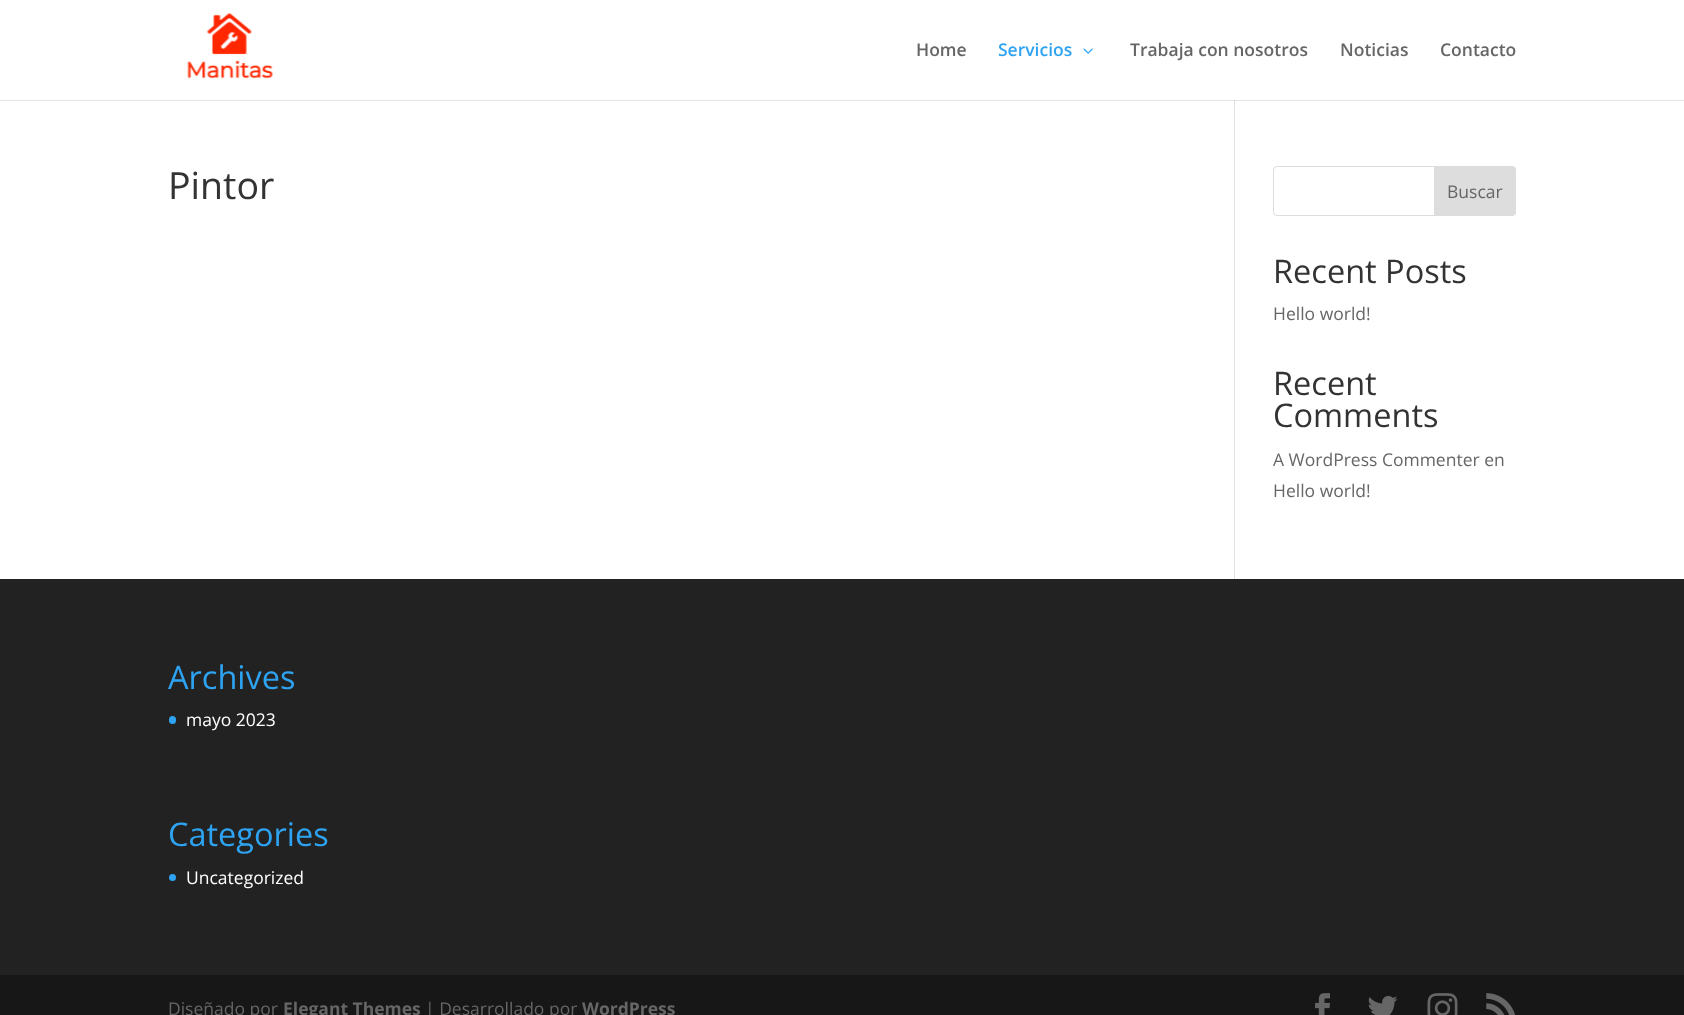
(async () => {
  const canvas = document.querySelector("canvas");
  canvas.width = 1684;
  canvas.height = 1015;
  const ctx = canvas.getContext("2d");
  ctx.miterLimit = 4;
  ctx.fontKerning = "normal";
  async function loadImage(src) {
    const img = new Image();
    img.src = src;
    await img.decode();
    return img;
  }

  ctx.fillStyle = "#ffffff";
  ctx.fillRect(0, 0, 1684, 1015);
  for (const [x, y, w, h, color] of [
    [0, 100, 1684, 1, "#e6e6e6"],
    [1234, 94, 1, 485, "#e2e2e2"],
    [1234, 94, 1, 6, "#ffffff"],
  ]) {
    ctx.fillStyle = color;
    ctx.fillRect(x, y, w, h);
  }
  ctx.drawImage(await loadImage("img/1.png"), 187, 13, 86, 66);
  ctx.drawImage(await loadImage("img/2.png"), 1083, 48, 10, 6);
  ctx.fillStyle = "#cbcbcb";
  ctx.fillRect(1234, 100, 1, 1);
  ctx.beginPath();
  ctx.roundRect(1273.5, 166.5, 242, 49, 3.5);
  ctx.strokeStyle = "#dddddd";
  ctx.stroke();
  ctx.fillStyle = "#dddddd";
  ctx.beginPath();
  ctx.roundRect(1434.5, 166.5, 81, 49, [0, 3.5, 3.5, 0]);
  ctx.fill();
  ctx.stroke();
  ctx.fillStyle = "#222222";
  ctx.fillRect(0, 579, 1684, 396);
  ctx.fillStyle = "#2ea3f2";
  ctx.beginPath();
  ctx.roundRect(169, 716, 7, 8, 3.5);
  ctx.fill();
  ctx.beginPath();
  ctx.arc(172.5, 877.5, 3.5, 0, Math.PI * 2);
  ctx.fill();
  ctx.fillStyle = "#171717";
  ctx.fillRect(0, 975, 1684, 40);
  ctx.drawImage(await loadImage("img/3.png"), 1315, 993, 15, 22);
  ctx.drawImage(await loadImage("img/4.png"), 1368, 996, 30, 19);
  ctx.drawImage(await loadImage("img/5.png"), 1427, 993, 31, 22);
  ctx.drawImage(await loadImage("img/6.png"), 1486, 993, 29, 22);
  ctx.font = "600 17.5px Open Sans";
  ctx.fillStyle = "#666666";
  ctx.fillText("Home", 916, 56);
  ctx.fillStyle = "#2ea3f2";
  ctx.fillText("Servicios", 998, 56);
  ctx.fillStyle = "#666666";
  for (const [text, x, y] of [
    ["Trabaja con nosotros", 1130, 56],
    ["Noticias", 1340, 56],
    ["Contacto", 1440, 56],
  ]) {
    ctx.fillText(text, x, y);
  }
  ctx.font = "37.5px Open Sans";
  ctx.fillStyle = "#333333";
  ctx.fillText("Pintor", 168, 199);
  ctx.font = "17.5px Open Sans";
  ctx.fillStyle = "#666666";
  ctx.fillText("Buscar", 1447, 198);
  ctx.font = "32.5px Open Sans";
  ctx.fillStyle = "#333333";
  ctx.fillText("Recent Posts", 1273, 283);
  ctx.font = "17.5px Open Sans";
  ctx.fillStyle = "#666666";
  ctx.fillText("Hello world!", 1273, 320);
  ctx.font = "32.5px Open Sans";
  ctx.fillStyle = "#333333";
  ctx.fillText("Recent", 1273, 395);
  ctx.fillText("Comments", 1273, 427);
  ctx.font = "17.5px Open Sans";
  ctx.fillStyle = "#666666";
  ctx.fillText("A WordPress Commenter en", 1273, 466);
  ctx.fillText("Hello world!", 1273, 497);
  ctx.font = "32.5px Open Sans";
  ctx.fillStyle = "#2ea3f2";
  ctx.fillText("Archives", 168, 689);
  ctx.font = "17.5px Open Sans";
  ctx.fillStyle = "#ffffff";
  ctx.fillText("mayo 2023", 186, 726);
  ctx.font = "32.5px Open Sans";
  ctx.fillStyle = "#2ea3f2";
  ctx.fillText("Categories", 168, 846);
  ctx.font = "17.5px Open Sans";
  ctx.fillStyle = "#ffffff";
  ctx.fillText("Uncategorized", 186, 884);
  ctx.fillStyle = "#666666";
  ctx.fillText("Diseñado por", 168, 1015);
  ctx.font = "bold 17.5px Open Sans";
  ctx.fillText("Elegant Themes", 283, 1015);
  ctx.font = "17.5px Open Sans";
  ctx.fillText("| Desarrollado por", 425, 1015);
  ctx.font = "bold 17.5px Open Sans";
  ctx.fillText("WordPress", 582, 1015);
})();
